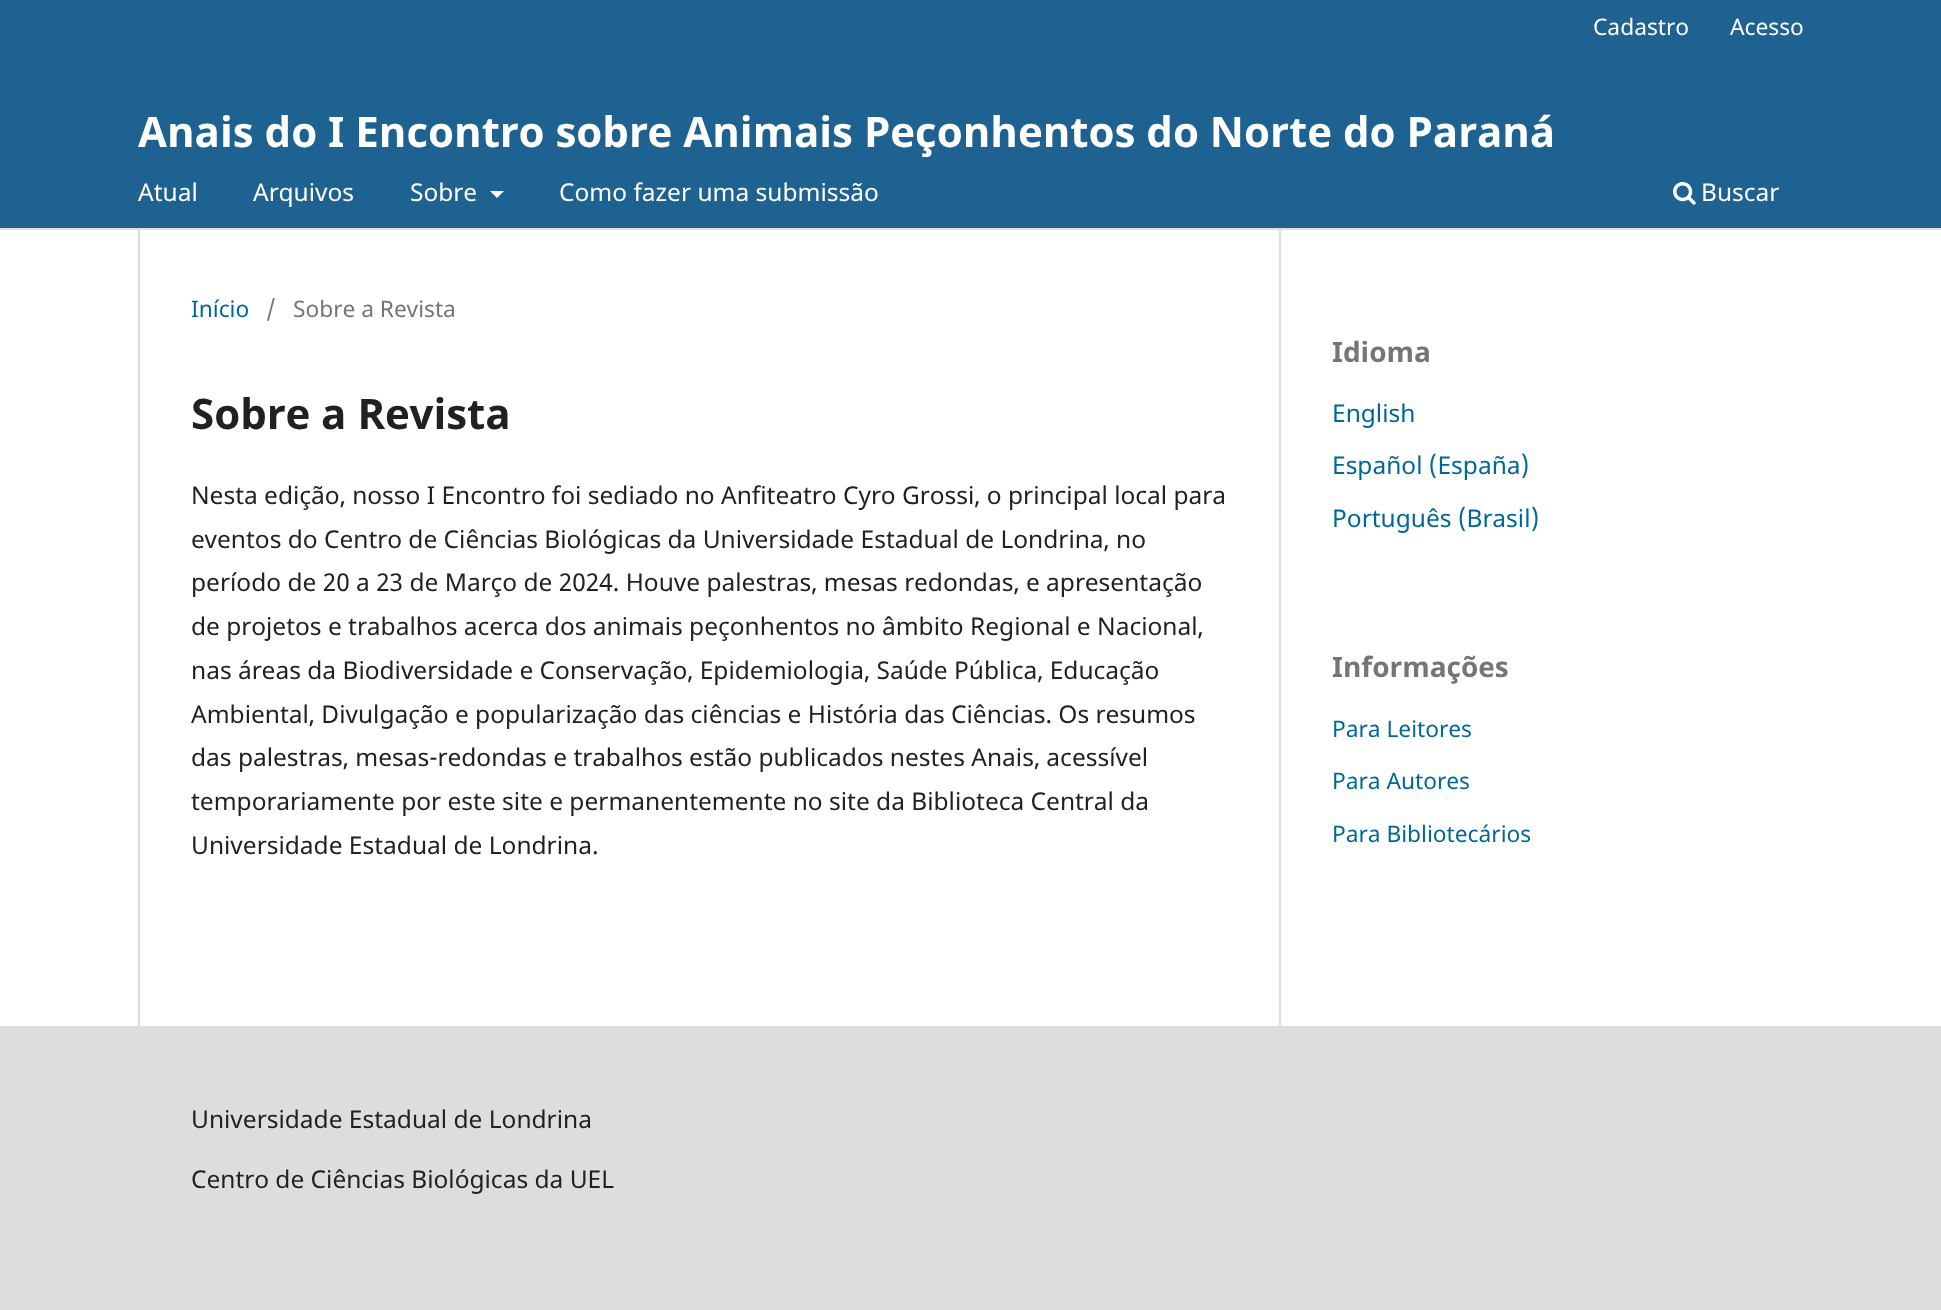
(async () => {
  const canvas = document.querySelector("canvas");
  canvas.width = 1941;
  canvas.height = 1310;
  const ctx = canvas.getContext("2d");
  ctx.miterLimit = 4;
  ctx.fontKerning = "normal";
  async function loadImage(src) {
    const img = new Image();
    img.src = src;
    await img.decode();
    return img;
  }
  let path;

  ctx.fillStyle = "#ffffff";
  ctx.fillRect(0, 0, 1941, 1310);
  ctx.fillStyle = "#1e6292";
  ctx.fillRect(0, 0, 1941, 228);
  ctx.fillStyle = "#dddddd";
  ctx.fillRect(0, 228, 1941, 2);
  ctx.fillStyle = "#ffffff";
  path = new Path2D("M490 191H504L497 198Z");
  ctx.fill(path);
  ctx.drawImage(await loadImage("img/1.png"), 1673, 182, 23, 23);
  for (const [x, y, w, h, color] of [
    [138, 229, 2, 797, "#dddddd"],
    [1279, 229, 2, 797, "#dddddd"],
    [0, 1026, 1941, 284, "#dddddd"],
  ]) {
    ctx.fillStyle = color;
    ctx.fillRect(x, y, w, h);
  }
  ctx.font = "22.75px Noto Sans";
  ctx.fillStyle = "#ffffff";
  ctx.fillText("Cadastro", 1593, 35);
  ctx.fillText("Acesso", 1730, 35);
  ctx.font = "24.5px Noto Sans";
  for (const [text, x, y] of [
    ["Atual", 138, 201],
    ["Arquivos", 253, 201],
    ["Sobre", 410, 201],
    ["Como fazer uma submissão", 559, 201],
    ["Buscar", 1701, 201],
  ]) {
    ctx.fillText(text, x, y);
  }
  ctx.font = "bold 42px Noto Sans";
  ctx.fillText("Anais do I Encontro sobre Animais Peçonhentos do Norte do Paraná", 138, 147);
  ctx.font = "22.75px Noto Sans";
  ctx.fillStyle = "#006798";
  ctx.fillText("Início", 191, 317);
  ctx.fillStyle = "#757575";
  ctx.fillText("/", 266, 317);
  ctx.fillText("Sobre a Revista", 293, 317);
  ctx.font = "bold 42px Noto Sans";
  ctx.fillStyle = "#212121";
  ctx.fillText("Sobre a Revista", 191, 429);
  ctx.font = "24.5px Noto Sans";
  for (const [text, x, y] of [
    ["Nesta edição, nosso I Encontro foi sediado no Anfiteatro Cyro Grossi, o principal local para", 191, 504],
    ["eventos do Centro de Ciências Biológicas da Universidade Estadual de Londrina, no", 191, 548],
    ["período de 20 a 23 de Março de 2024. Houve palestras, mesas redondas, e apresentação", 191, 591],
    ["de projetos e trabalhos acerca dos animais peçonhentos no âmbito Regional e Nacional,", 191, 635],
    ["nas áreas da Biodiversidade e Conservação, Epidemiologia, Saúde Pública, Educação", 191, 679],
    ["Ambiental, Divulgação e popularização das ciências e História das Ciências. Os resumos", 191, 723],
    ["das palestras, mesas-redondas e trabalhos estão publicados nestes Anais, acessível", 191, 766],
    ["temporariamente por este site e permanentemente no site da Biblioteca Central da", 191, 810],
    ["Universidade Estadual de Londrina.", 191, 854],
  ]) {
    ctx.fillText(text, x, y);
  }
  ctx.font = "bold 28px Noto Sans";
  ctx.fillStyle = "#757575";
  ctx.fillText("Idioma", 1332, 362);
  ctx.font = "24.5px Noto Sans";
  ctx.fillStyle = "#006798";
  for (const [text, x, y] of [
    ["English", 1332, 422],
    ["Español (España)", 1332, 474],
    ["Português (Brasil)", 1332, 527],
  ]) {
    ctx.fillText(text, x, y);
  }
  ctx.font = "bold 28px Noto Sans";
  ctx.fillStyle = "#757575";
  ctx.fillText("Informações", 1332, 677);
  ctx.font = "22.75px Noto Sans";
  ctx.fillStyle = "#006798";
  for (const [text, x, y] of [
    ["Para Leitores", 1332, 737],
    ["Para Autores", 1332, 789],
    ["Para Bibliotecários", 1332, 842],
  ]) {
    ctx.fillText(text, x, y);
  }
  ctx.font = "24.5px Noto Sans";
  ctx.fillStyle = "#212121";
  ctx.fillText("Universidade Estadual de Londrina", 191, 1128);
  ctx.fillText("Centro de Ciências Biológicas da UEL", 191, 1188);
})();
